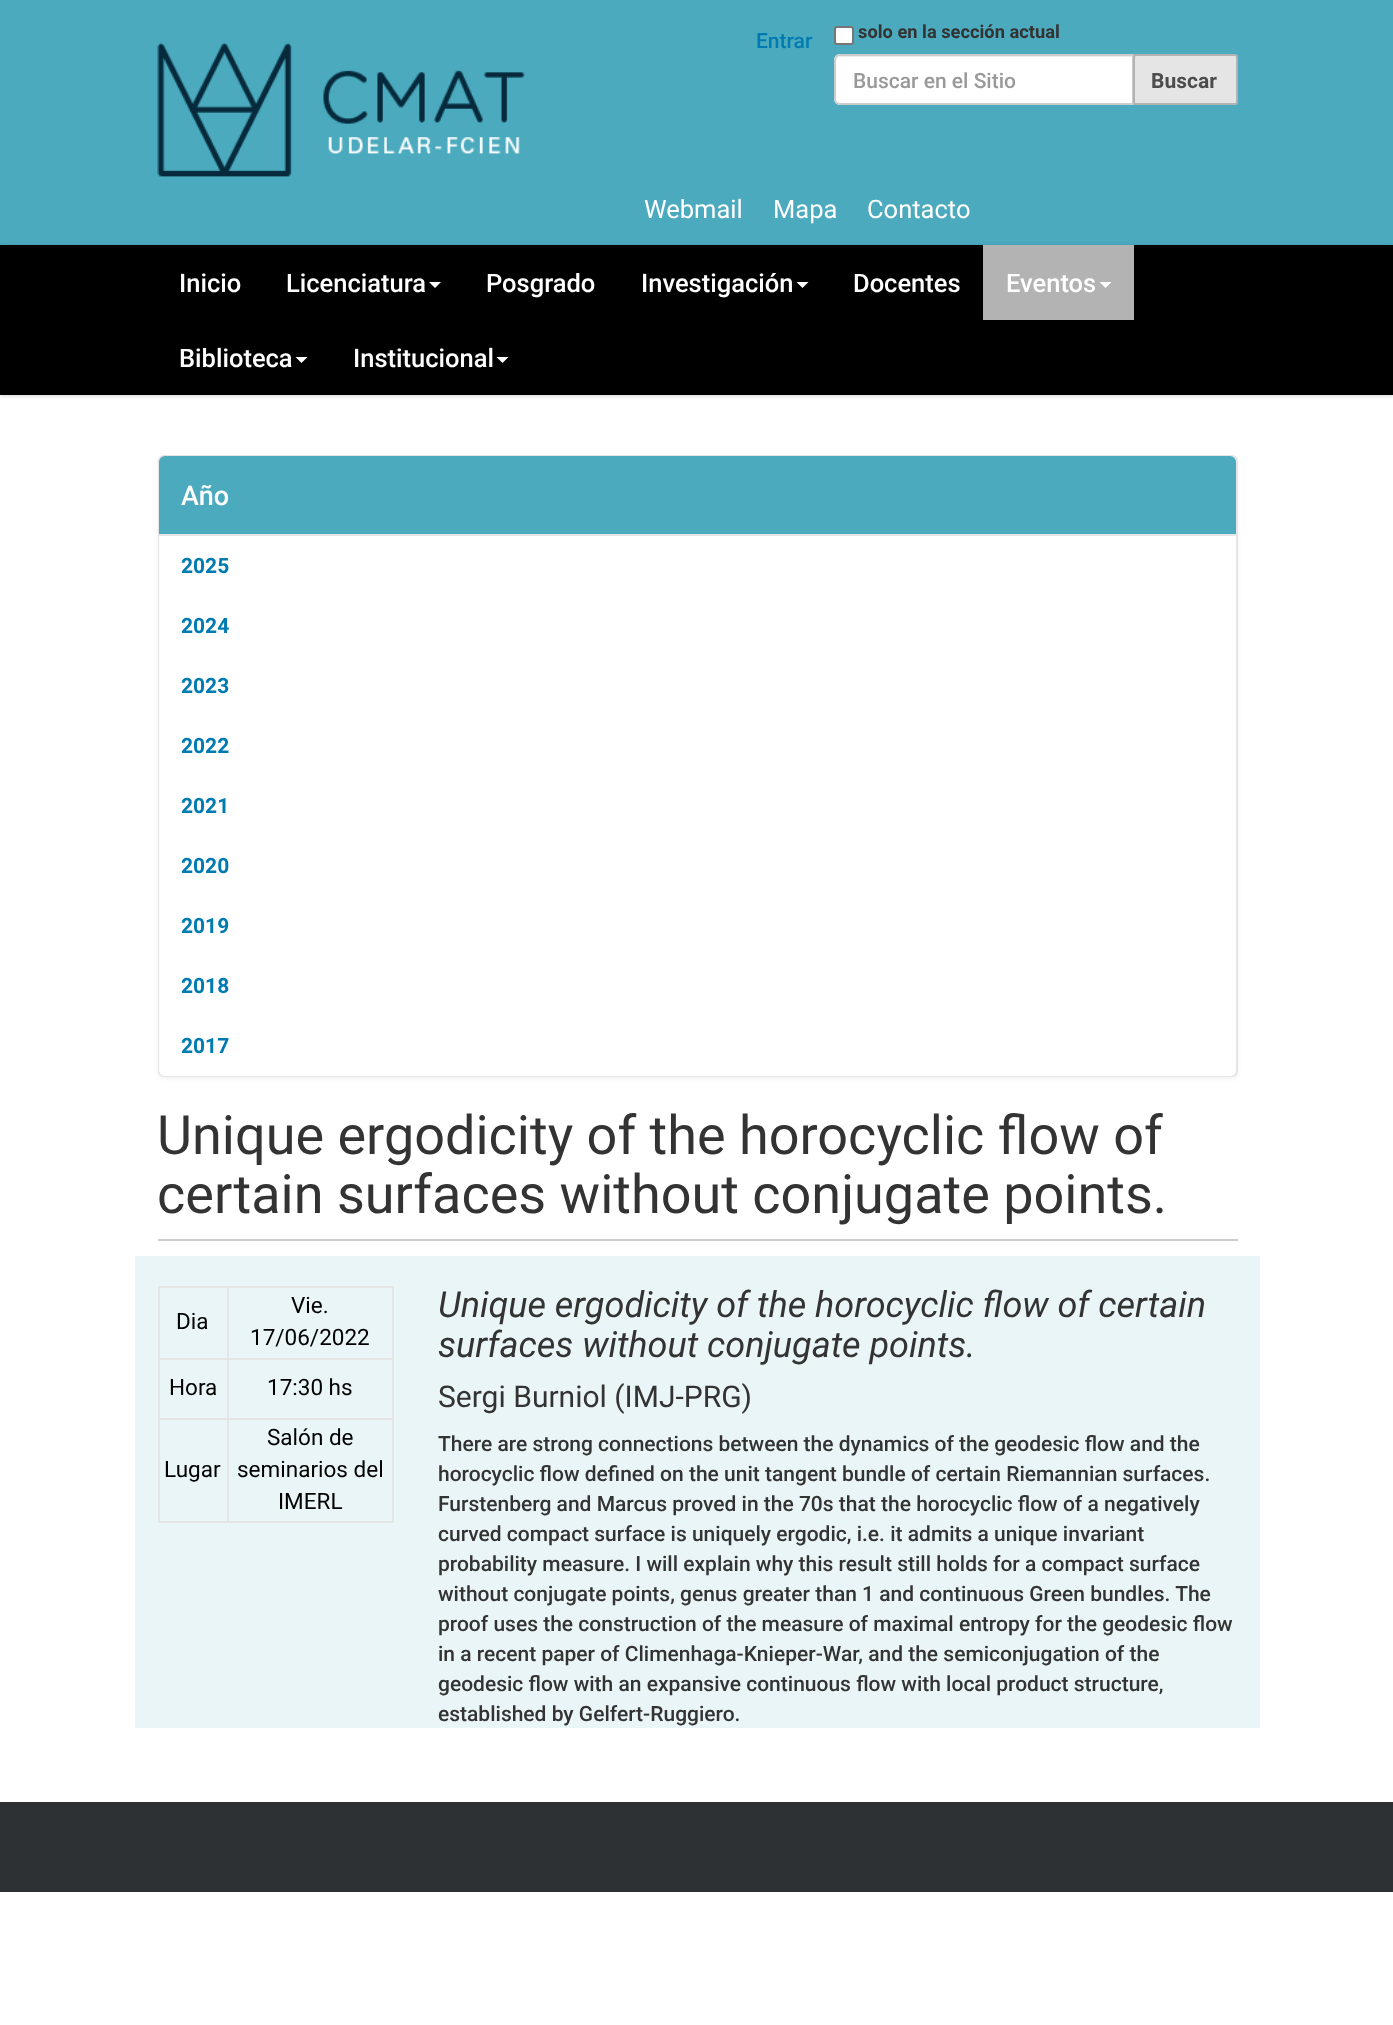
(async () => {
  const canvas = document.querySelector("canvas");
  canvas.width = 1393;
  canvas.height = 2025;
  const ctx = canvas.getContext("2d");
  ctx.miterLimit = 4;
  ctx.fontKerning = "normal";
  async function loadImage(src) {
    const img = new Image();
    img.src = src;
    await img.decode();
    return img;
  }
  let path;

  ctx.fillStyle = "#ffffff";
  ctx.fillRect(0, 0, 1393, 2025);
  ctx.fillStyle = "#4baabe";
  ctx.fillRect(0, 0, 1393, 245);
  ctx.drawImage(await loadImage("img/1.png"), 157, 42, 368, 135);
  ctx.fillStyle = "#ffffff";
  ctx.beginPath();
  ctx.roundRect(835, 27, 18, 17, 2);
  ctx.fill();
  ctx.strokeStyle = "#767676";
  ctx.lineWidth = 2;
  ctx.stroke();
  ctx.beginPath();
  ctx.roundRect(834, 54, 300, 51, [6, 0, 0, 6]);
  ctx.fill();
  ctx.fillStyle = "#ececec";
  path = new Path2D("M840 57H1132V104H1133V56H841C838 56 836 58 836 61V62C836 59 838 57 840 57Z");
  ctx.fill(path);
  ctx.beginPath();
  ctx.roundRect(835, 55, 298, 49, [5, 0, 0, 5]);
  ctx.strokeStyle = "#cccccc";
  ctx.stroke();
  ctx.fillStyle = "#e5e5e5";
  ctx.beginPath();
  ctx.roundRect(1134, 55, 103, 49, 2);
  ctx.fill();
  ctx.strokeStyle = "#b2b2b2";
  ctx.stroke();
  ctx.fillStyle = "rgba(0, 0, 0, 0.17)";
  ctx.filter = "blur(2px)";
  ctx.beginPath();
  ctx.rect(0, 246, 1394, 150);
  ctx.fill();
  ctx.filter = "none";
  ctx.fillStyle = "#000000";
  ctx.fillRect(0, 245, 1393, 150);
  ctx.fillStyle = "#ffffff";
  path = new Path2D("M429 282H441L435 288Z");
  ctx.fill(path);
  path = new Path2D("M796.5 282H808.5L802.5 288Z");
  ctx.fill(path);
  ctx.fillStyle = "#b3b3b3";
  ctx.fillRect(983, 245, 151, 75);
  ctx.fillStyle = "#ffffff";
  path = new Path2D("M1099.5 282H1111.5L1105.5 288Z");
  ctx.fill(path);
  path = new Path2D("M295.5 357H307.5L301.5 363Z");
  ctx.fill(path);
  path = new Path2D("M496.5 357H508.5L502.5 363Z");
  ctx.fill(path);
  ctx.fillStyle = "rgba(0, 0, 0, 0.05)";
  ctx.filter = "blur(2px)";
  ctx.beginPath();
  ctx.roundRect(158, 456, 1080, 623, 6);
  ctx.fill();
  ctx.filter = "none";
  ctx.beginPath();
  ctx.roundRect(159, 456, 1078, 620, 5);
  ctx.strokeStyle = "#e5e5e5";
  ctx.stroke();
  ctx.fillStyle = "#4baabe";
  ctx.beginPath();
  ctx.roundRect(159, 456, 1077, 78, [6, 6, 0, 0]);
  ctx.fill();
  ctx.fillStyle = "#ffffff";
  ctx.beginPath();
  ctx.roundRect(159, 534, 1077, 542, [0, 0, 6, 6]);
  ctx.fill();
  for (const [x, y, w, h, color] of [
    [159, 534, 1077, 2, "#e5e5e5"],
    [158, 1239, 1080, 2, "#cccccc"],
    [135, 1256, 1125, 472, "#eaf5f7"],
    [227, 1286, 166, 2, "#e5e5e5"],
    [227, 1358, 166, 2, "#e5e5e5"],
    [227, 1418, 166, 2, "#e5e5e5"],
    [392, 1418, 2, 105, "#e5e5e5"],
    [227, 1521, 166, 2, "#e5e5e5"],
    [227, 1418, 2, 105, "#e5e5e5"],
    [158, 1418, 70, 2, "#e5e5e5"],
    [227, 1358, 2, 61, "#e5e5e5"],
    [158, 1358, 70, 2, "#e5e5e5"],
    [227, 1286, 2, 73, "#e5e5e5"],
    [158, 1286, 70, 2, "#e5e5e5"],
    [158, 1521, 70, 2, "#e5e5e5"],
    [158, 1418, 2, 105, "#e5e5e5"],
    [158, 1358, 2, 61, "#e5e5e5"],
    [158, 1286, 2, 73, "#e5e5e5"],
    [392, 1358, 2, 61, "#e5e5e5"],
    [392, 1286, 2, 73, "#e5e5e5"],
    [0, 1802, 1393, 90, "#2e3133"],
  ]) {
    ctx.fillStyle = color;
    ctx.fillRect(x, y, w, h);
  }
  ctx.font = "500 21px Roboto";
  ctx.fillStyle = "#007bb1";
  ctx.fillText("Entrar", 756, 48);
  ctx.font = "bold 18.25px Roboto";
  ctx.fillStyle = "#333333";
  ctx.fillText("solo en la sección actual", 858, 38);
  ctx.font = "500 21px Roboto";
  ctx.fillStyle = "#999999";
  ctx.fillText("Buscar en el Sitio", 853, 88);
  ctx.font = "bold 21px Roboto";
  ctx.fillStyle = "#4d4d4d";
  ctx.fillText("Buscar", 1151, 88);
  ctx.font = "25.5px Roboto";
  ctx.fillStyle = "#ffffff";
  for (const [text, x, y] of [
    ["Webmail", 644, 218],
    ["Mapa", 773, 218],
    ["Contacto", 867, 218],
  ]) {
    ctx.fillText(text, x, y);
  }
  ctx.font = "500 25.5px Roboto";
  for (const [text, x, y] of [
    ["Inicio", 179, 292],
    ["Licenciatura", 286, 292],
    ["Posgrado", 486, 292],
    ["Investigación", 641, 292],
    ["Docentes", 853, 292],
    ["Eventos", 1006, 292],
    ["Biblioteca", 179, 367],
    ["Institucional", 353, 367],
  ]) {
    ctx.fillText(text, x, y);
  }
  ctx.font = "500 27px Roboto";
  ctx.fillText("Año", 181, 505);
  ctx.font = "bold 21px Roboto";
  ctx.fillStyle = "#007bb1";
  for (const [text, x, y] of [
    ["2025", 181, 573],
    ["2024", 181, 633],
    ["2023", 181, 693],
    ["2022", 181, 753],
    ["2021", 181, 813],
    ["2020", 181, 873],
    ["2019", 181, 933],
    ["2018", 181, 993],
    ["2017", 181, 1053],
  ]) {
    ctx.fillText(text, x, y);
  }
  ctx.font = "54px Roboto";
  ctx.fillStyle = "#333333";
  ctx.fillText("Unique ergodicity of the horocyclic flow of", 157, 1154);
  ctx.fillText("certain surfaces without conjugate points.", 157, 1213);
  ctx.font = "22.5px Roboto";
  ctx.fillStyle = "#000000";
  for (const [text, x, y] of [
    ["Dia", 176, 1329],
    ["Vie.", 291, 1313],
    ["17/06/2022", 250, 1345],
    ["Hora", 169, 1395],
    ["17:30 hs", 267, 1395],
    ["Lugar", 164, 1477],
    ["Salón de", 267, 1445],
    ["seminarios del", 237, 1477],
    ["IMERL", 278, 1509],
  ]) {
    ctx.fillText(text, x, y);
  }
  ctx.font = "italic 36px Roboto";
  ctx.fillStyle = "#333333";
  ctx.fillText("Unique ergodicity of the horocyclic flow of certain", 438, 1317);
  ctx.fillText("surfaces without conjugate points.", 438, 1357);
  ctx.font = "30px Roboto";
  ctx.fillText("Sergi Burniol (IMJ-PRG)", 438, 1407);
  ctx.font = "500 21px Roboto";
  for (const [text, x, y] of [
    ["There are strong connections between the dynamics of the geodesic flow and the", 438, 1451],
    ["horocyclic flow defined on the unit tangent bundle of certain Riemannian surfaces.", 438, 1481],
    ["Furstenberg and Marcus proved in the 70s that the horocyclic flow of a negatively", 438, 1511],
    ["curved compact surface is uniquely ergodic, i.e. it admits a unique invariant", 438, 1541],
    ["probability measure. I will explain why this result still holds for a compact surface", 438, 1571],
    ["without conjugate points, genus greater than 1 and continuous Green bundles. The", 438, 1601],
    ["proof uses the construction of the measure of maximal entropy for the geodesic flow", 438, 1631],
    ["in a recent paper of Climenhaga-Knieper-War, and the semiconjugation of the", 438, 1661],
    ["geodesic flow with an expansive continuous flow with local product structure,", 438, 1691],
    ["established by Gelfert-Ruggiero.", 438, 1721],
  ]) {
    ctx.fillText(text, x, y);
  }
})();
